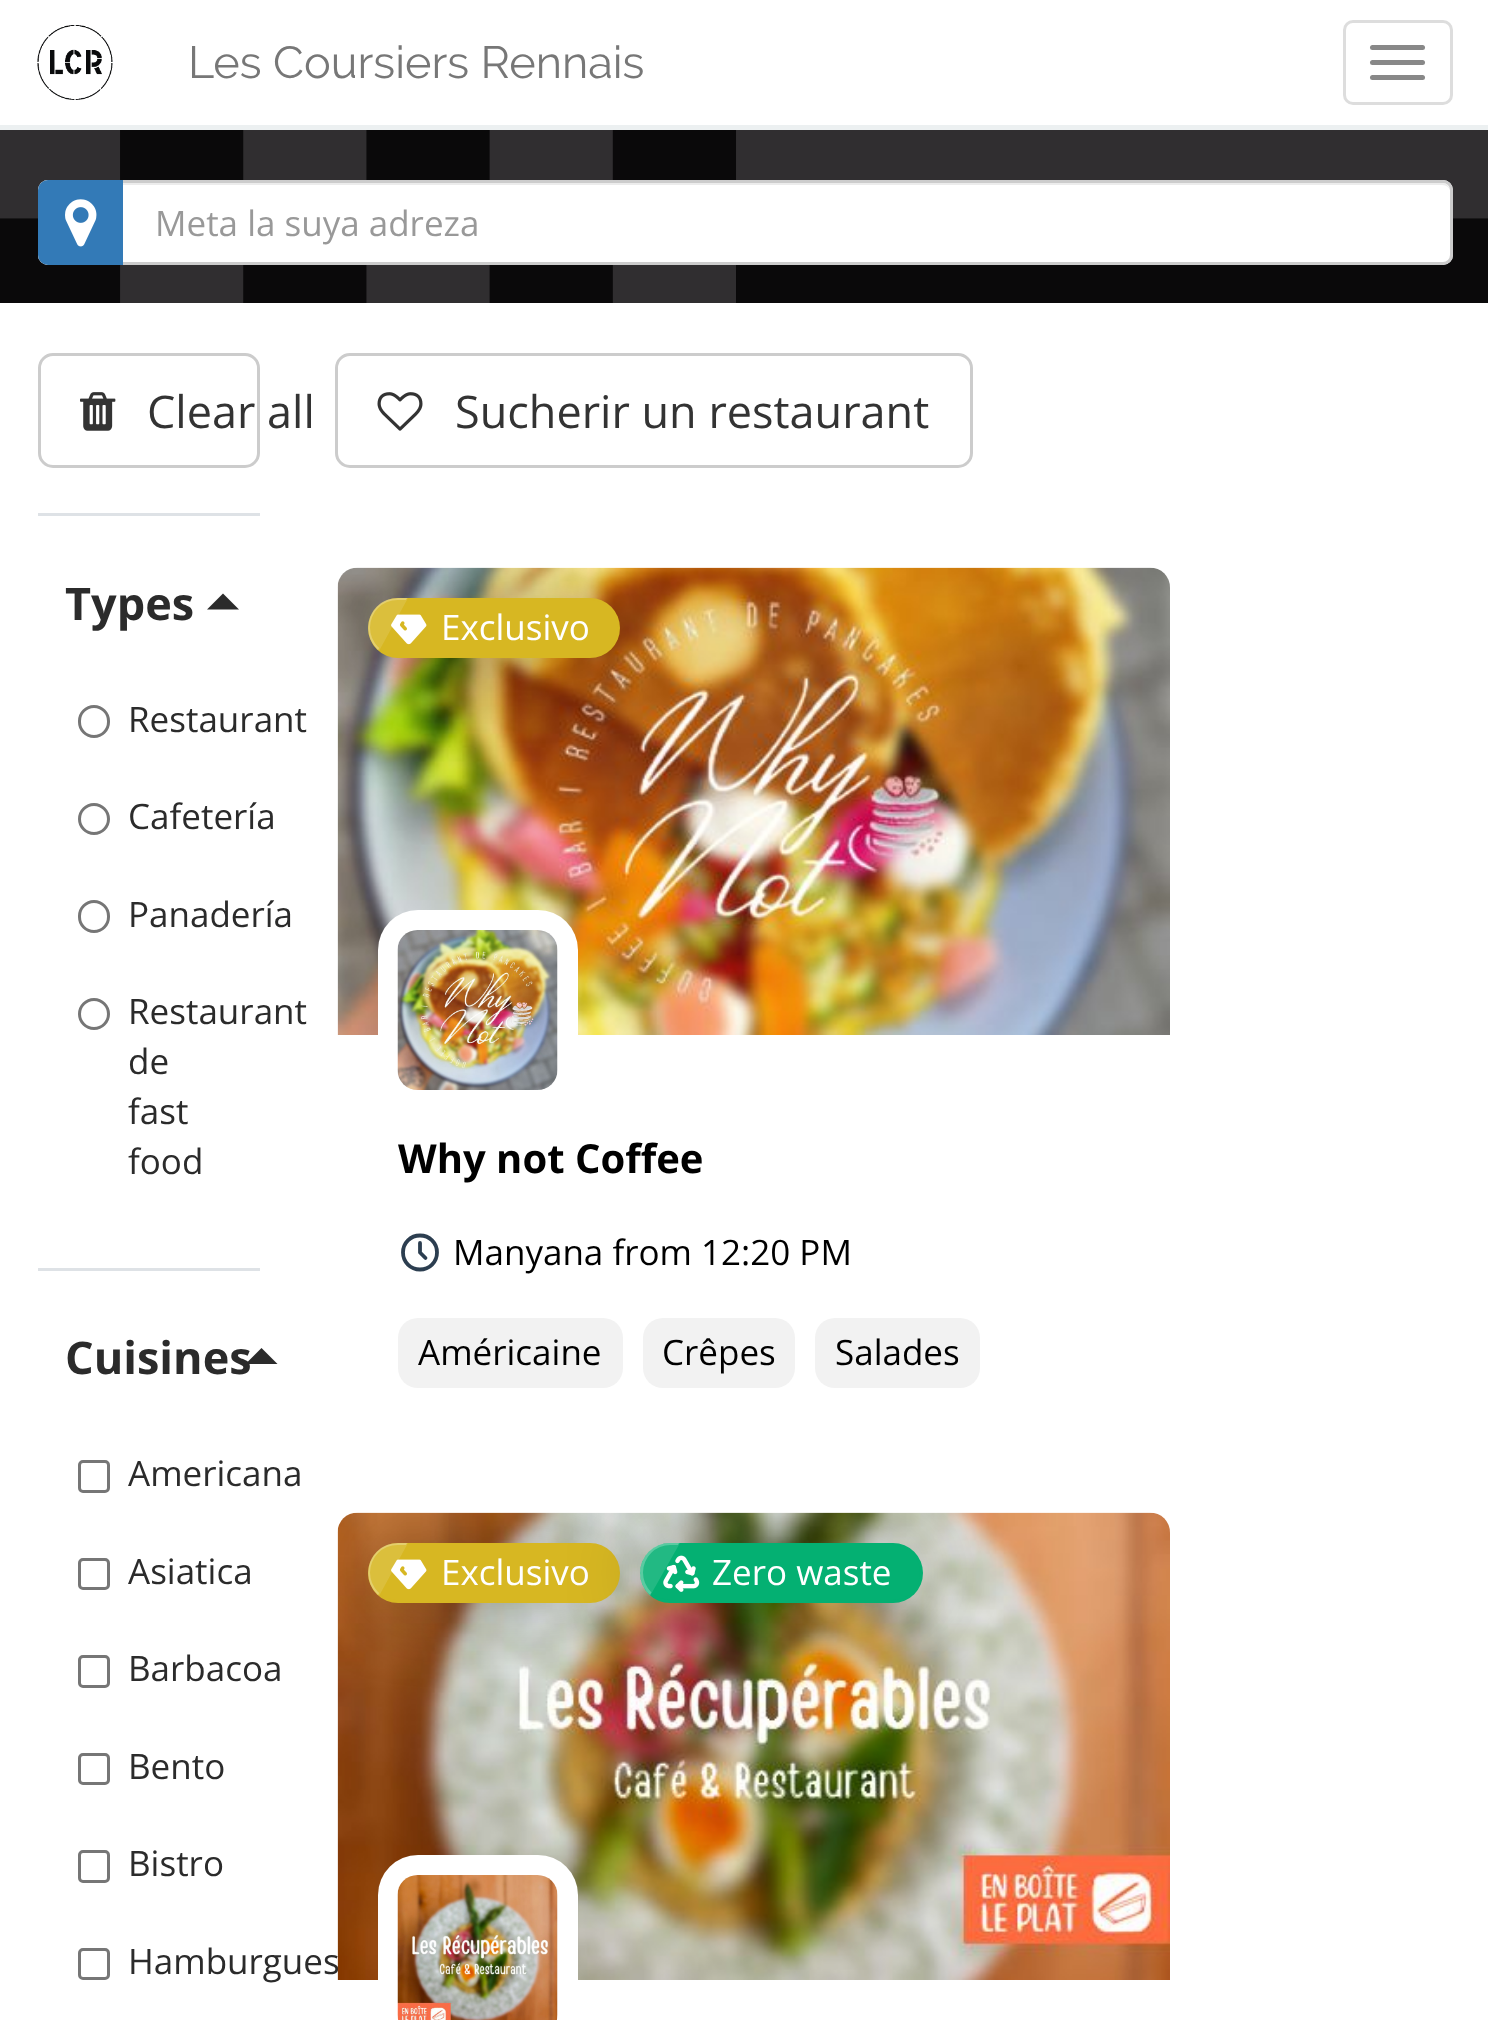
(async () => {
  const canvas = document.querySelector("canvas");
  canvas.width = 1488;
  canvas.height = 2020;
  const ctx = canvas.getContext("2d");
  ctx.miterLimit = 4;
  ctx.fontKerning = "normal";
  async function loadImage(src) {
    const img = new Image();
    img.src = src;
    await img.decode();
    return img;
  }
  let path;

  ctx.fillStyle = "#ffffff";
  ctx.fillRect(0, 0, 1488, 2020);
  ctx.fillStyle = "#ecf0f1";
  ctx.fillRect(0, 125, 1488, 5);
  ctx.drawImage(await loadImage("img/1.png"), 37, 25, 76, 75);
  ctx.beginPath();
  ctx.roundRect(1344.5, 21.5, 107, 82, 8.5);
  ctx.strokeStyle = "#dddddd";
  ctx.lineWidth = 3;
  ctx.stroke();
  ctx.fillStyle = "#888888";
  ctx.beginPath();
  ctx.roundRect(1370, 45, 55, 5, 2.5);
  ctx.fill();
  ctx.beginPath();
  ctx.roundRect(1370, 60, 55, 5, 2.5);
  ctx.fill();
  ctx.beginPath();
  ctx.roundRect(1370, 75, 55, 5, 2.5);
  ctx.fill();
  ctx.drawImage(await loadImage("img/2.png"), 0, 130, 1488, 173);
  ctx.fillStyle = "#ffffff";
  ctx.beginPath();
  ctx.roundRect(38, 180, 1415, 85, 10);
  ctx.fill();
  ctx.fillStyle = "#ececec";
  path = new Path2D("M48 185H1442C1447 185 1450 188 1450 192C1450 187 1447 183 1442 183H48C43 183 40 187 40 192C40 188 43 185 48 185Z");
  ctx.fill(path);
  ctx.beginPath();
  ctx.roundRect(39.5, 181.5, 1412, 82, 8.5);
  ctx.strokeStyle = "#cccccc";
  ctx.stroke();
  ctx.fillStyle = "#337ab7";
  ctx.beginPath();
  ctx.roundRect(38, 180, 85, 85, [10, 0, 0, 10]);
  ctx.fill();
  ctx.drawImage(await loadImage("img/3.png"), 65, 199, 32, 48);
  ctx.beginPath();
  ctx.roundRect(39.5, 354.5, 219, 112, 13.5);
  ctx.stroke();
  ctx.drawImage(await loadImage("img/4.png"), 80, 392, 36, 39);
  ctx.fillStyle = "#dee2e6";
  ctx.fillRect(38, 513, 222, 3);
  ctx.fillStyle = "#2b2b2b";
  path = new Path2D("M239 609.5H207L223 593.5Z");
  ctx.fill(path);
  ctx.beginPath();
  ctx.roundRect(79.5, 706.5, 29, 30, 14.5);
  ctx.strokeStyle = "#767676";
  ctx.stroke();
  ctx.beginPath();
  ctx.arc(94, 819, 14.5, 0, Math.PI * 2);
  ctx.stroke();
  ctx.beginPath();
  ctx.roundRect(79.5, 901.5, 29, 30, 14.5);
  ctx.stroke();
  ctx.beginPath();
  ctx.arc(94, 1014, 14.5, 0, Math.PI * 2);
  ctx.stroke();
  ctx.fillStyle = "#dee2e6";
  ctx.fillRect(38, 1268, 222, 3);
  ctx.fillStyle = "#2b2b2b";
  path = new Path2D("M277.5 1364H245.5L261.5 1348Z");
  ctx.fill(path);
  ctx.beginPath();
  ctx.roundRect(79.5, 1461.5, 29, 30, 3.5);
  ctx.stroke();
  ctx.beginPath();
  ctx.roundRect(79.5, 1559.5, 29, 29, 3.5);
  ctx.stroke();
  ctx.beginPath();
  ctx.roundRect(79.5, 1656.5, 29, 30, 3.5);
  ctx.stroke();
  ctx.beginPath();
  ctx.roundRect(79.5, 1754.5, 29, 29, 3.5);
  ctx.stroke();
  ctx.beginPath();
  ctx.roundRect(79.5, 1851.5, 29, 30, 3.5);
  ctx.stroke();
  ctx.beginPath();
  ctx.roundRect(79.5, 1949.5, 29, 29, 3.5);
  ctx.stroke();
  ctx.beginPath();
  ctx.roundRect(336.5, 354.5, 635, 112, 13.5);
  ctx.strokeStyle = "#cccccc";
  ctx.stroke();
  ctx.drawImage(await loadImage("img/5.png"), 377, 392, 46, 39);
  ctx.drawImage(await loadImage("img/6.png"), 337, 567, 833, 468);
  ctx.save();
  ctx.beginPath();
  ctx.roundRect(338, 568, 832, 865, 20);
  ctx.clip();
  ctx.fillStyle = "rgba(0, 0, 0, 0.25)";
  ctx.filter = "blur(40px)";
  ctx.beginPath();
  ctx.roundRect(368, 598, 252, 60, 30);
  ctx.fill();
  ctx.filter = "none";
  ctx.restore();
  ctx.fillStyle = "#d7b722";
  ctx.beginPath();
  ctx.roundRect(368, 598, 252, 60, 30);
  ctx.fill();
  ctx.fillStyle = "rgba(255, 255, 255, 0.25)";
  path = new Path2D("M398 598H407L378 650C358 632 370 598 398 598Z");
  ctx.fill(path);
  ctx.fillStyle = "#d7b722";
  ctx.beginPath();
  ctx.roundRect(370, 600, 248, 55, 27.5);
  ctx.fill();
  ctx.drawImage(await loadImage("img/7.png"), 391, 614, 36, 31);
  ctx.fillStyle = "rgba(255, 255, 255, 0.12)";
  path = new Path2D("M398 598H408L379 651C358 633 370 598 398 598Z");
  ctx.fill(path);
  ctx.fillStyle = "#ffffff";
  ctx.beginPath();
  ctx.roundRect(378, 910, 200, 200, 40);
  ctx.fill();
  ctx.drawImage(await loadImage("img/8.png"), 397, 930, 161, 160);
  path = new Path2D("M403 1252.5C403 1262 410.5 1269.5 420 1269.5C429.5 1269.5 437 1262 437 1252.5C437 1243 429.5 1235.5 420 1235.5C410.5 1235.5 403 1243 403 1252.5M420 1243V1252.5L425.5 1258");
  ctx.strokeStyle = "#2c3e50";
  ctx.lineWidth = 3.8;
  ctx.lineCap = "round";
  ctx.lineJoin = "round";
  ctx.stroke(path);
  ctx.fillStyle = "#f2f2f2";
  ctx.beginPath();
  ctx.roundRect(398, 1318, 225, 70, 20);
  ctx.fill();
  ctx.beginPath();
  ctx.roundRect(643, 1318, 152, 70, 20);
  ctx.fill();
  ctx.beginPath();
  ctx.roundRect(815, 1318, 165, 70, 20);
  ctx.fill();
  ctx.font = "45px Raleway";
  ctx.fillStyle = "#777777";
  ctx.fillText("Les Coursiers Rennais", 188, 78);
  ctx.font = "35px Open Sans";
  ctx.fillStyle = "#999999";
  ctx.fillText("Meta la suya adreza", 155, 236);
  ctx.font = "45px Open Sans";
  ctx.fillStyle = "#333333";
  ctx.fillText("Clear all", 147, 428);
  ctx.font = "bold 45px Open Sans";
  ctx.fillStyle = "#2b2b2b";
  ctx.fillText("Types", 65, 620);
  ctx.font = "35px Open Sans";
  for (const [text, x, y] of [
    ["Restaurant", 128, 732],
    ["Cafetería", 128, 829],
    ["Panadería", 128, 927],
    ["Restaurant", 128, 1024],
    ["de", 128, 1074],
    ["fast", 128, 1124],
    ["food", 128, 1174],
  ]) {
    ctx.fillText(text, x, y);
  }
  ctx.font = "bold 45px Open Sans";
  ctx.fillText("Cuisines", 65, 1374);
  ctx.font = "35px Open Sans";
  for (const [text, x, y] of [
    ["Americana", 128, 1486],
    ["Asiatica", 128, 1584],
    ["Barbacoa", 128, 1681],
    ["Bento", 128, 1779],
    ["Bistro", 128, 1876],
    ["Hamburgues", 128, 1974],
  ]) {
    ctx.fillText(text, x, y);
  }
  ctx.font = "45px Open Sans";
  ctx.fillStyle = "#333333";
  ctx.fillText("Sucherir un restaurant", 455, 428);
  ctx.font = "35px Open Sans";
  ctx.fillStyle = "#ffffff";
  ctx.fillText("Exclusivo", 441, 640);
  ctx.font = "bold 40px Open Sans";
  ctx.fillStyle = "#000000";
  ctx.fillText("Why not Coffee", 398, 1173);
  ctx.font = "35px Open Sans";
  for (const [text, x, y] of [
    ["Manyana from 12:20 PM", 453, 1265],
    ["Américaine", 418, 1365],
    ["Crêpes", 662, 1365],
    ["Salades", 835, 1365],
  ]) {
    ctx.fillText(text, x, y);
  }
  ctx.drawImage(await loadImage("img/9.png"), 337, 1512, 833, 468);
  ctx.save();
  ctx.beginPath();
  ctx.roundRect(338, 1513, 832, 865, 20);
  ctx.clip();
  ctx.fillStyle = "rgba(0, 0, 0, 0.25)";
  ctx.filter = "blur(40px)";
  ctx.beginPath();
  ctx.roundRect(368, 1543, 252, 60, 30);
  ctx.fill();
  ctx.filter = "none";
  ctx.restore();
  ctx.fillStyle = "#d7b722";
  ctx.beginPath();
  ctx.roundRect(368, 1543, 252, 60, 30);
  ctx.fill();
  ctx.fillStyle = "rgba(255, 255, 255, 0.25)";
  path = new Path2D("M398 1543H407L378 1595C358 1577 370 1543 398 1543Z");
  ctx.fill(path);
  ctx.fillStyle = "#d7b722";
  ctx.beginPath();
  ctx.roundRect(370, 1545, 248, 55, 27.5);
  ctx.fill();
  ctx.drawImage(await loadImage("img/7.png"), 391, 1559, 36, 31);
  ctx.fillStyle = "rgba(255, 255, 255, 0.12)";
  path = new Path2D("M398 1543H408L379 1596C358 1578 370 1543 398 1543Z");
  ctx.fill(path);
  ctx.fillStyle = "#ffffff";
  ctx.fillText("Exclusivo", 441, 1585);
  ctx.save();
  ctx.beginPath();
  ctx.roundRect(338, 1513, 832, 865, 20);
  ctx.clip();
  ctx.fillStyle = "rgba(0, 0, 0, 0.25)";
  ctx.filter = "blur(40px)";
  ctx.beginPath();
  ctx.roundRect(640, 1543, 283, 60, 30);
  ctx.fill();
  ctx.filter = "none";
  ctx.restore();
  ctx.fillStyle = "#04b072";
  ctx.beginPath();
  ctx.roundRect(640, 1543, 283, 60, 30);
  ctx.fill();
  ctx.fillStyle = "rgba(255, 255, 255, 0.25)";
  path = new Path2D("M670 1543H679L650 1595C630 1577 642 1543 670 1543Z");
  ctx.fill(path);
  ctx.fillStyle = "#04b072";
  ctx.beginPath();
  ctx.roundRect(643, 1545, 277, 55, 27.5);
  ctx.fill();
  ctx.drawImage(await loadImage("img/10.png"), 663, 1555, 37, 37);
  ctx.fillStyle = "rgba(255, 255, 255, 0.12)";
  path = new Path2D("M670 1543H680L650 1596C630 1578 642 1543 670 1543Z");
  ctx.fill(path);
  ctx.fillStyle = "#ffffff";
  ctx.fillText("Zero waste", 712, 1585);
  ctx.beginPath();
  ctx.roundRect(378, 1855, 200, 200, 40);
  ctx.fill();
  ctx.drawImage(await loadImage("img/11.png"), 397, 1875, 161, 145);
})();
